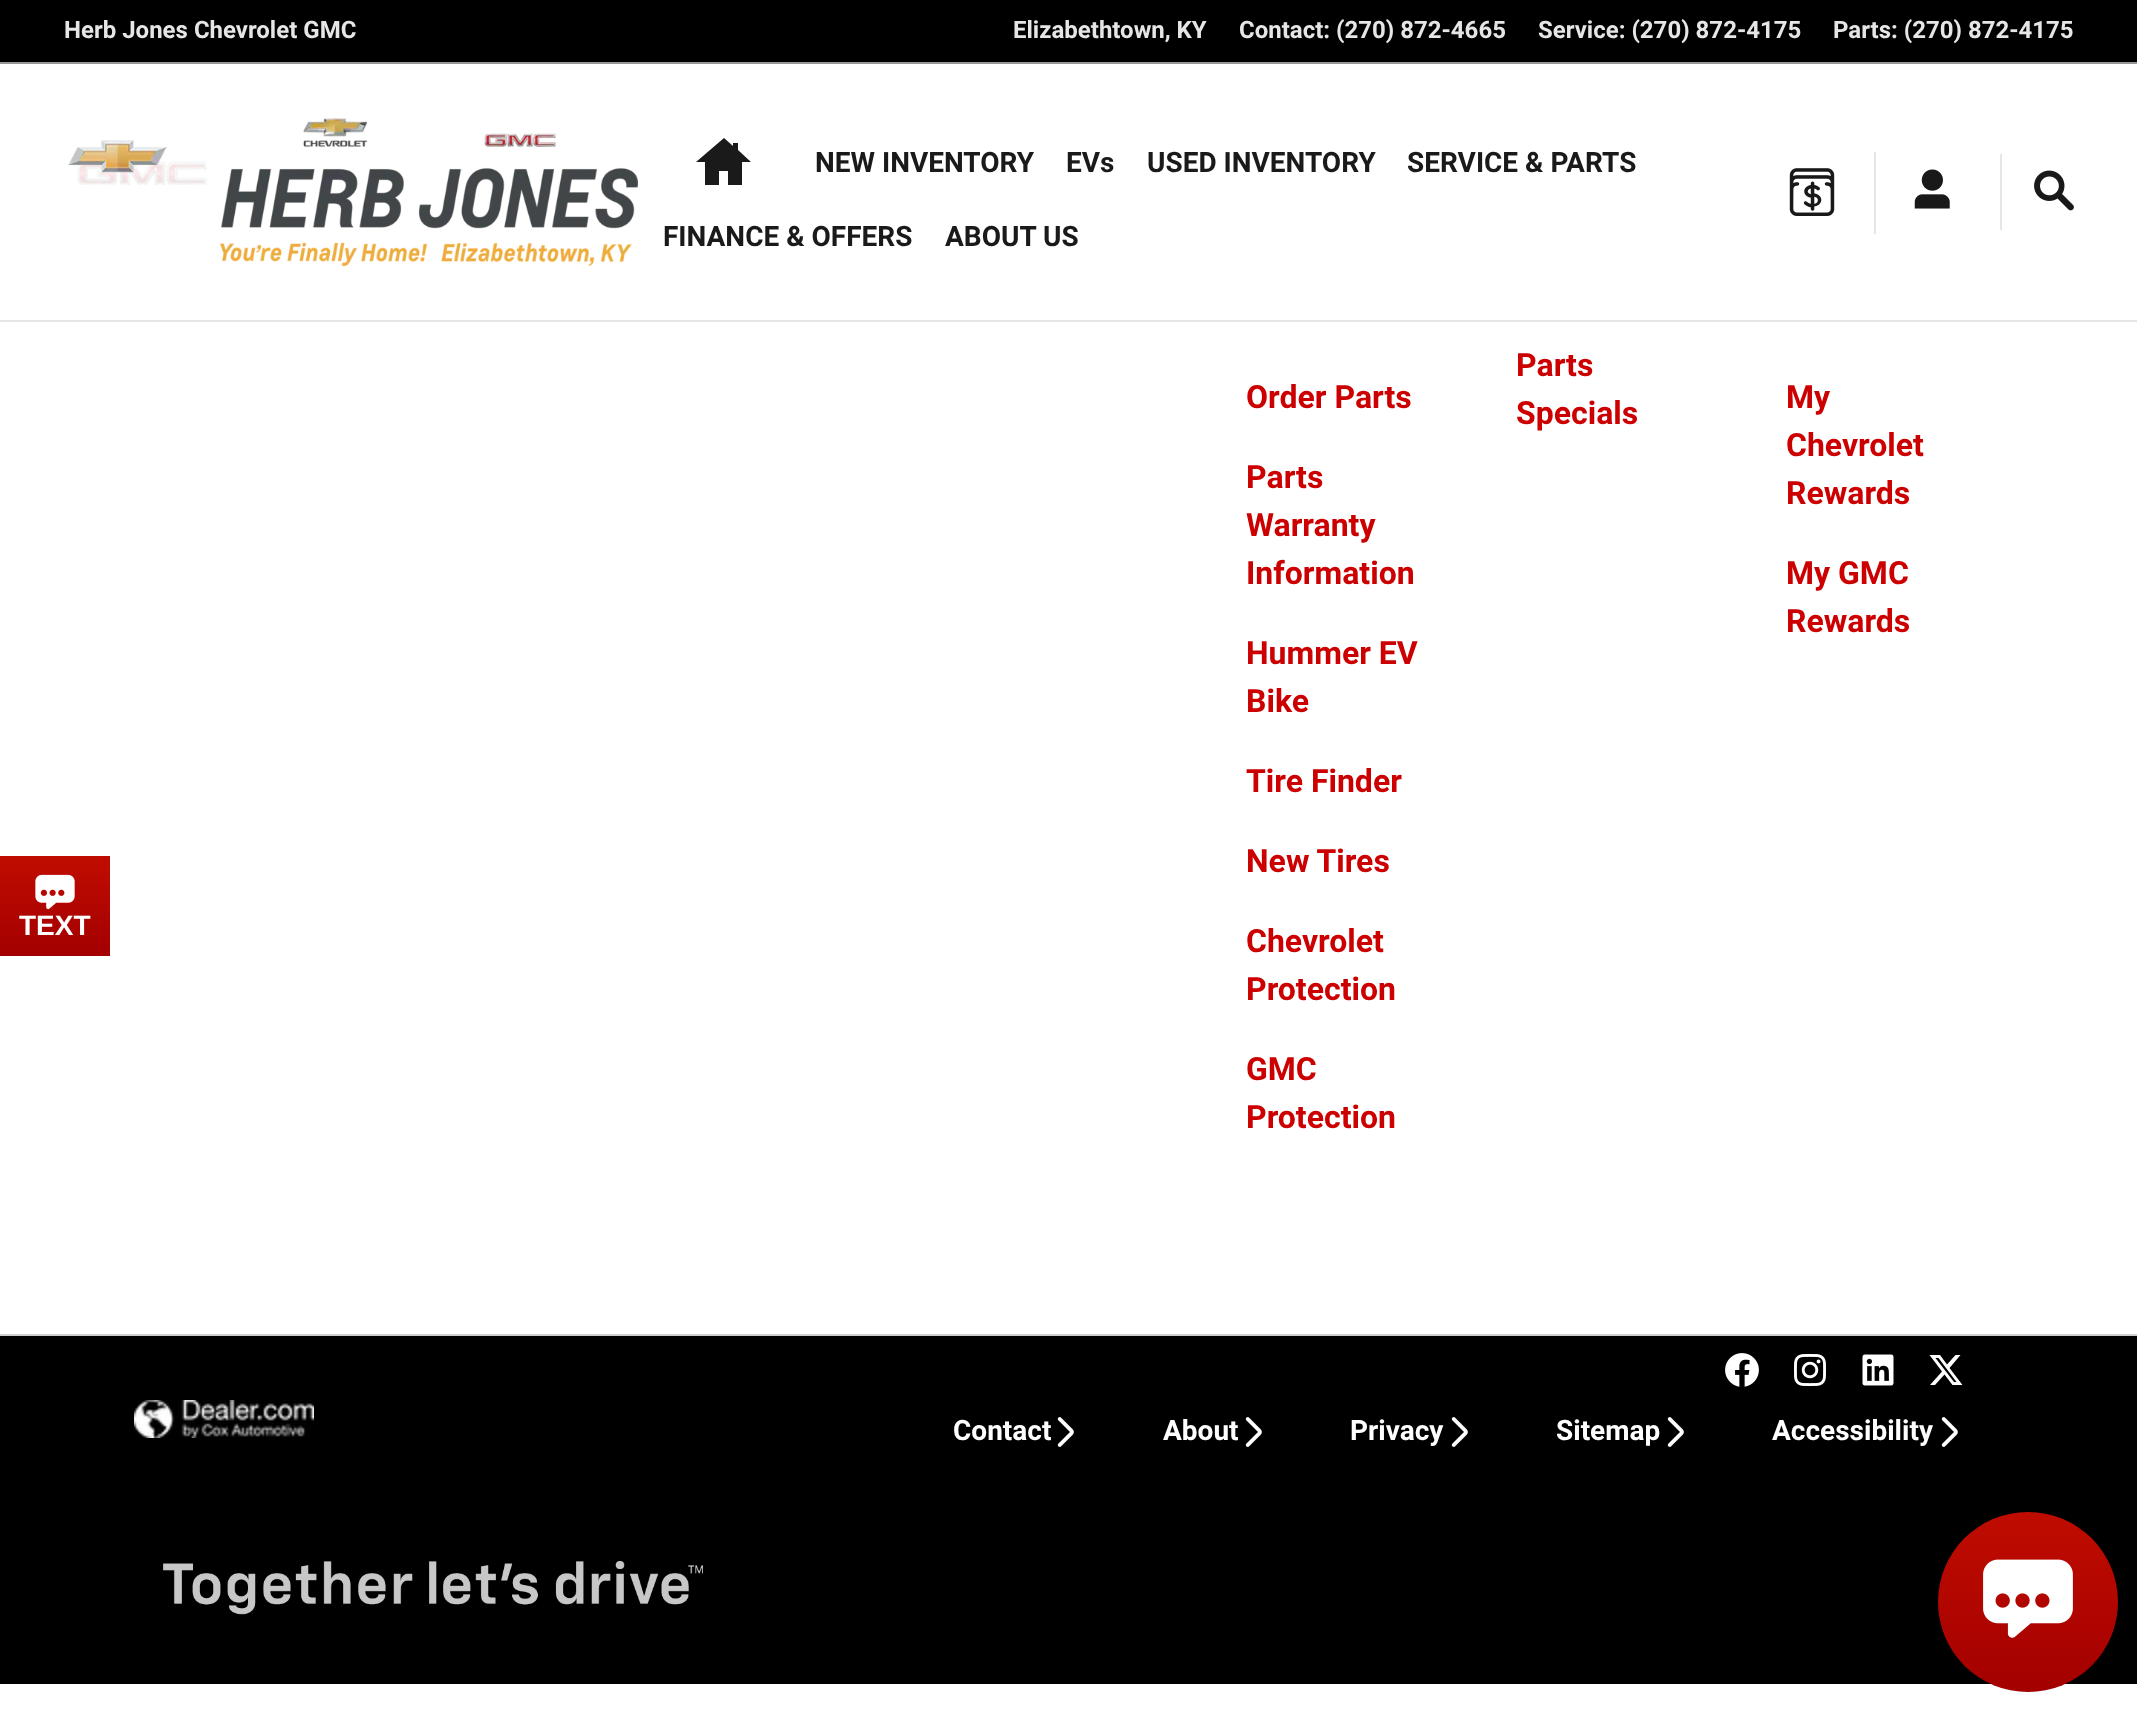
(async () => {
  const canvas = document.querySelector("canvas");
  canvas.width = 2137;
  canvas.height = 1711;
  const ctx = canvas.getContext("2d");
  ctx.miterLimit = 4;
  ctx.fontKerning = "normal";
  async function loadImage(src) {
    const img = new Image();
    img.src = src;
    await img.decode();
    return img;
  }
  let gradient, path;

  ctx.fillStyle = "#ffffff";
  ctx.fillRect(0, 0, 2137, 1711);
  for (const [x, y, w, h, color] of [
    [0, 320, 2137, 2, "#e6e6e6"],
    [0, 0, 2137, 62, "#000000"],
    [0, 62, 2137, 2, "#969696"],
  ]) {
    ctx.fillStyle = color;
    ctx.fillRect(x, y, w, h);
  }
  ctx.drawImage(await loadImage("img/2.png"), 77, 161, 130, 24);
  ctx.drawImage(await loadImage("img/1.png"), 68, 140, 100, 33);
  ctx.drawImage(await loadImage("img/3.png"), 220, 118, 418, 148);
  ctx.fillStyle = "#1a1a1a";
  path = new Path2D("M738 150V143H733V146L724 138L696 162H705V185H719V171H728V185H742V162H751Z");
  ctx.fill(path);
  ctx.drawImage(await loadImage("img/4.png"), 1789, 168, 46, 48);
  ctx.fillStyle = "#e6e6e6";
  ctx.fillRect(1874, 152, 2, 82);
  ctx.drawImage(await loadImage("img/5.png"), 1914, 169, 36, 40);
  ctx.fillRect(2000, 154, 2, 76);
  ctx.drawImage(await loadImage("img/6.png"), 2034, 170, 40, 41);
  gradient = ctx.createLinearGradient(55, 856, 55, 956);
  gradient.addColorStop(0, "#c00c00");
  gradient.addColorStop(1, "#a30000");
  ctx.fillStyle = gradient;
  ctx.fillRect(0, 856, 110, 100);
  ctx.drawImage(await loadImage("img/7.png"), 35, 874, 40, 36);
  ctx.fillStyle = "#000000";
  ctx.fillRect(0, 1336, 2137, 348);
  ctx.fillStyle = "#cfcfcf";
  ctx.fillRect(0, 1334, 2137, 2);
  ctx.drawImage(await loadImage("img/8.png"), 1725, 1353, 34, 34);
  ctx.drawImage(await loadImage("img/9.png"), 1794, 1354, 32, 32);
  ctx.drawImage(await loadImage("img/10.png"), 1862, 1354, 32, 32);
  ctx.fillStyle = "#ffffff";
  path = new Path2D("M1955.5 1355H1960.5L1949.5 1368L1962.5 1385H1952.5L1944.5 1374.5L1935 1385H1930L1942 1371.5L1929.5 1355H1940L1947 1364.5ZM1954 1382H1956.5L1938.5 1358H1935.5Z");
  ctx.fill(path);
  ctx.drawImage(await loadImage("img/11.png"), 134, 1400, 180, 38);
  ctx.drawImage(await loadImage("img/12.png"), 1057, 1417, 17, 30);
  ctx.drawImage(await loadImage("img/12.png"), 1245, 1417, 17, 30);
  ctx.drawImage(await loadImage("img/12.png"), 1451, 1417, 17, 30);
  ctx.drawImage(await loadImage("img/12.png"), 1667, 1417, 17, 30);
  ctx.drawImage(await loadImage("img/12.png"), 1941, 1417, 17, 30);
  ctx.drawImage(await loadImage("img/13.png"), 163, 1561, 540, 54);
  gradient = ctx.createLinearGradient(2028, 1512, 2028, 1692);
  gradient.addColorStop(0, "#c00c00");
  gradient.addColorStop(1, "#a30000");
  ctx.fillStyle = gradient;
  ctx.beginPath();
  ctx.arc(2028, 1602, 90, 0, Math.PI * 2);
  ctx.fill();
  ctx.drawImage(await loadImage("img/14.png"), 1983, 1559, 90, 79);
  ctx.font = "bold 24px Roboto";
  ctx.fillStyle = "#e6e6e6";
  for (const [text, x, y] of [
    ["Herb Jones Chevrolet GMC", 64, 38],
    ["Elizabethtown, KY", 1013, 38],
    ["Contact: (270) 872-4665", 1239, 38],
    ["Service: (270) 872-4175", 1538, 38],
    ["Parts: (270) 872-4175", 1833, 38],
  ]) {
    ctx.fillText(text, x, y);
  }
  ctx.font = "bold 28px Roboto";
  ctx.fillStyle = "#1a1a1a";
  for (const [text, x, y] of [
    ["NEW INVENTORY", 815, 172],
    ["EVs", 1066, 172],
    ["USED INVENTORY", 1147, 172],
    ["SERVICE & PARTS", 1407, 172],
    ["FINANCE & OFFERS", 663, 246],
    ["ABOUT US", 945, 246],
  ]) {
    ctx.fillText(text, x, y);
  }
  ctx.font = "bold 28px Liberation Sans";
  ctx.fillStyle = "#ffffff";
  ctx.fillText("TEXT", 19, 935);
  ctx.font = "bold 32px Roboto";
  ctx.fillStyle = "#cc0000";
  for (const [text, x, y] of [
    ["Order Parts", 1246, 408],
    ["Parts", 1246, 488],
    ["Warranty", 1246, 536],
    ["Information", 1246, 584],
    ["Hummer EV", 1246, 664],
    ["Bike", 1246, 712],
    ["Tire Finder", 1246, 792],
    ["New Tires", 1246, 872],
    ["Chevrolet", 1246, 952],
    ["Protection", 1246, 1000],
    ["GMC", 1246, 1080],
    ["Protection", 1246, 1128],
    ["Parts", 1516, 376],
    ["Specials", 1516, 424],
    ["My", 1786, 408],
    ["Chevrolet", 1786, 456],
    ["Rewards", 1786, 504],
    ["My GMC", 1786, 584],
    ["Rewards", 1786, 632],
  ]) {
    ctx.fillText(text, x, y);
  }
  ctx.font = "bold 28px Roboto";
  ctx.fillStyle = "#ffffff";
  for (const [text, x, y] of [
    ["Contact", 953, 1440],
    ["About", 1163, 1440],
    ["Privacy", 1350, 1440],
    ["Sitemap", 1556, 1440],
    ["Accessibility", 1772, 1440],
  ]) {
    ctx.fillText(text, x, y);
  }
})();
